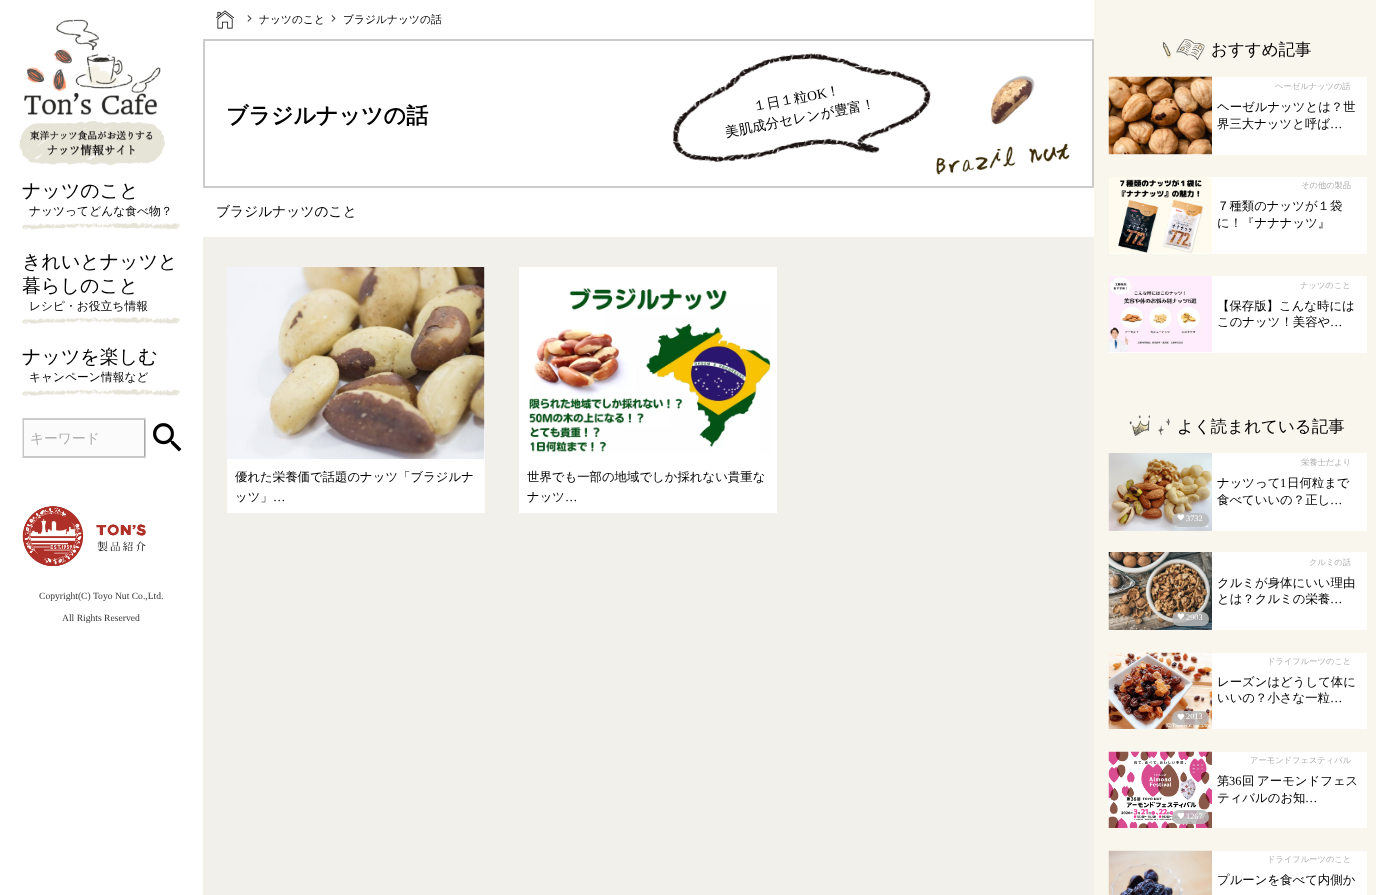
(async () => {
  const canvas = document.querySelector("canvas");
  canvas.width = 1376;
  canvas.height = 895;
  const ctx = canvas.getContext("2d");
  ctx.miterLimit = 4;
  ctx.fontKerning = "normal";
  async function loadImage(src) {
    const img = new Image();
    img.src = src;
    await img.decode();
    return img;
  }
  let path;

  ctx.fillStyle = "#ffffff";
  ctx.fillRect(0, 0, 1376, 895);
  ctx.drawImage(await loadImage("img/1.png"), 26, 19, 135, 74);
  ctx.drawImage(await loadImage("img/2.png"), 19, 93, 146, 72);
  ctx.drawImage(await loadImage("img/3.png"), 22, 222, 158, 8);
  ctx.drawImage(await loadImage("img/4.png"), 22, 317, 158, 7);
  ctx.drawImage(await loadImage("img/4.png"), 22, 389, 158, 7);
  ctx.fillStyle = "#fbfbfb";
  ctx.fillRect(23, 419, 123, 39);
  ctx.fillStyle = "rgba(0, 0, 0, 0.2)";
  path = new Path2D("M22 418H146L144 420H24Z");
  ctx.fill(path);
  ctx.fillStyle = "#a7a7aa";
  path = new Path2D("M145.5 418.5V457.5L144 456V420Z");
  ctx.fill(path);
  ctx.fillStyle = "rgba(0, 0, 0, 0.2)";
  path = new Path2D("M146 458H22L24 456H144Z");
  ctx.fill(path);
  path = new Path2D("M22.5 457.5V418.5L24 420V456Z");
  ctx.fill(path);
  ctx.drawImage(await loadImage("img/5.png"), 153, 423, 29, 29);
  ctx.drawImage(await loadImage("img/6.png"), 22, 506, 124, 60);
  ctx.fillStyle = "#f2f0ea";
  ctx.fillRect(203, 237, 891, 658);
  ctx.drawImage(await loadImage("img/7.png"), 216, 10, 18, 19);
  ctx.drawImage(await loadImage("img/8.png"), 247, 15, 5, 7);
  ctx.drawImage(await loadImage("img/8.png"), 331, 15, 5, 7);
  ctx.strokeStyle = "#cccccc";
  ctx.lineWidth = 2;
  ctx.strokeRect(204, 40, 889, 147);
  ctx.drawImage(await loadImage("img/9.png"), 672, 53, 259, 110);
  ctx.drawImage(await loadImage("img/10.png"), 990, 75, 45, 50);
  ctx.drawImage(await loadImage("img/11.png"), 936, 143, 134, 32);
  ctx.fillStyle = "#ffffff";
  ctx.fillRect(227, 267, 258, 246);
  ctx.drawImage(await loadImage("img/12.png"), 226, 267, 259, 192);
  ctx.fillRect(519, 267, 258, 246);
  ctx.drawImage(await loadImage("img/13.png"), 529, 288, 242, 165);
  ctx.fillStyle = "#f9f6ed";
  ctx.fillRect(1094, 0, 282, 895);
  ctx.drawImage(await loadImage("img/14.png"), 1162, 39, 43, 21);
  ctx.fillStyle = "#ffffff";
  ctx.fillRect(1109, 77, 258, 78);
  ctx.drawImage(await loadImage("img/15.png"), 1108, 76, 104, 79);
  ctx.fillRect(1109, 177, 258, 77);
  ctx.drawImage(await loadImage("img/16.png"), 1109, 177, 103, 77);
  ctx.fillRect(1109, 276, 258, 77);
  ctx.drawImage(await loadImage("img/17.png"), 1108, 276, 104, 77);
  ctx.drawImage(await loadImage("img/18.png"), 1129, 415, 41, 22);
  ctx.fillRect(1212, 453, 155, 78);
  ctx.drawImage(await loadImage("img/19.png"), 1108, 453, 104, 78);
  ctx.fillStyle = "rgba(185, 184, 184, 0.85)";
  ctx.beginPath();
  ctx.roundRect(1172, 513, 37, 14, 7);
  ctx.fill();
  ctx.drawImage(await loadImage("img/20.png"), 1177, 514, 8, 7);
  ctx.fillStyle = "#ffffff";
  ctx.fillRect(1212, 552, 155, 78);
  ctx.drawImage(await loadImage("img/21.png"), 1108, 552, 104, 78);
  ctx.fillStyle = "rgba(185, 184, 184, 0.85)";
  ctx.beginPath();
  ctx.roundRect(1172, 612, 37, 14, 7);
  ctx.fill();
  ctx.drawImage(await loadImage("img/22.png"), 1177, 613, 8, 7);
  ctx.fillStyle = "#ffffff";
  ctx.fillRect(1212, 653, 155, 76);
  ctx.drawImage(await loadImage("img/23.png"), 1108, 652, 104, 77);
  ctx.fillStyle = "rgba(185, 184, 184, 0.85)";
  ctx.beginPath();
  ctx.roundRect(1172, 711, 37, 14, 7);
  ctx.fill();
  ctx.drawImage(await loadImage("img/24.png"), 1177, 713, 8, 7);
  ctx.fillStyle = "#ffffff";
  ctx.fillRect(1109, 752, 258, 76);
  ctx.drawImage(await loadImage("img/25.png"), 1108, 751, 104, 77);
  ctx.fillStyle = "rgba(185, 184, 184, 0.85)";
  ctx.beginPath();
  ctx.roundRect(1172, 810, 37, 14, 7);
  ctx.fill();
  ctx.drawImage(await loadImage("img/26.png"), 1177, 812, 8, 7);
  ctx.fillStyle = "#ffffff";
  ctx.fillRect(1212, 851, 155, 44);
  ctx.drawImage(await loadImage("img/27.png"), 1108, 850, 104, 45);
  ctx.font = "500 19px WenQuanYi Zen Hei";
  ctx.fillStyle = "#000000";
  ctx.fillText("ナッツのこと", 22, 197);
  ctx.font = "500 11.75px WenQuanYi Zen Hei";
  ctx.fillText("ナッツってどんな食べ物？", 29, 215);
  ctx.font = "500 19px WenQuanYi Zen Hei";
  ctx.fillText("きれいとナッツと", 22, 268);
  ctx.fillText("暮らしのこと", 22, 292);
  ctx.font = "500 11.75px WenQuanYi Zen Hei";
  ctx.fillText("レシピ・お役立ち情報", 29, 310);
  ctx.font = "500 19px WenQuanYi Zen Hei";
  ctx.fillText("ナッツを楽しむ", 22, 363);
  ctx.font = "500 11.75px WenQuanYi Zen Hei";
  ctx.fillText("キャンペーン情報など", 29, 381);
  ctx.font = "500 13.75px WenQuanYi Zen Hei";
  ctx.fillStyle = "#adadad";
  ctx.fillText("キーワード", 30, 443);
  ctx.font = "9.6px Liberation Serif";
  ctx.fillStyle = "#333333";
  ctx.fillText("Copyright(C) Toyo Nut Co.,Ltd.", 39, 599);
  ctx.fillText("All Rights Reserved", 62, 621);
  ctx.font = "500 10.75px WenQuanYi Zen Hei";
  ctx.fillStyle = "#000000";
  ctx.fillText("ナッツのこと", 259, 23);
  ctx.fillText("ブラジルナッツの話", 343, 23);
  ctx.font = "bold 22px WenQuanYi Zen Hei";
  ctx.fillText("ブラジルナッツの話", 226, 123);
  ctx.font = "500 13.75px WenQuanYi Zen Hei";
  ctx.save();
  ctx.translate(754, 111);
  ctx.rotate(-11 * Math.PI / 180);
  ctx.fillText("１日１粒", 0, 0);
  ctx.restore();
  ctx.font = "13.75px Liberation Serif";
  ctx.save();
  ctx.translate(808, 101);
  ctx.rotate(-11 * Math.PI / 180);
  ctx.fillText("OK", 0, 0);
  ctx.restore();
  ctx.font = "500 13.75px WenQuanYi Zen Hei";
  ctx.save();
  ctx.translate(827, 97);
  ctx.rotate(-11 * Math.PI / 180);
  ctx.fillText("！", 0, 0);
  ctx.restore();
  ctx.save();
  ctx.translate(726, 137);
  ctx.rotate(-11 * Math.PI / 180);
  ctx.fillText("美肌成分セレンが豊富！", 0, 0);
  ctx.restore();
  ctx.fillText("ブラジルナッツのこと", 216, 216);
  ctx.font = "500 12.4px WenQuanYi Zen Hei";
  ctx.fillText("優れた栄養価で話題のナッツ「ブラジルナ", 235, 481);
  ctx.fillText("ッツ」", 235, 501);
  ctx.font = "12.4px Liberation Serif";
  ctx.fillText("…", 273, 501);
  ctx.font = "500 12.4px WenQuanYi Zen Hei";
  ctx.fillText("世界でも一部の地域でしか採れない貴重な", 527, 481);
  ctx.fillText("ナッツ", 527, 501);
  ctx.font = "12.4px Liberation Serif";
  ctx.fillText("…", 565, 501);
  ctx.font = "500 16.5px WenQuanYi Zen Hei";
  ctx.fillText("おすすめ記事", 1211, 55);
  ctx.font = "500 8.25px WenQuanYi Zen Hei";
  ctx.fillStyle = "#adadad";
  ctx.fillText("ヘーゼルナッツの話", 1275, 89);
  ctx.font = "500 12.4px WenQuanYi Zen Hei";
  ctx.fillStyle = "#000000";
  ctx.fillText("ヘーゼルナッツとは？世", 1217, 111);
  ctx.fillText("界三大ナッツと呼ば", 1217, 128);
  ctx.font = "12.4px Liberation Serif";
  ctx.fillText("…", 1330, 128);
  ctx.font = "500 8.25px WenQuanYi Zen Hei";
  ctx.fillStyle = "#adadad";
  ctx.fillText("その他の製品", 1301, 188);
  ctx.font = "500 12.4px WenQuanYi Zen Hei";
  ctx.fillStyle = "#000000";
  ctx.fillText("７種類のナッツが１袋", 1217, 210);
  ctx.fillText("に！『ナナナッツ』", 1217, 227);
  ctx.font = "500 8.25px WenQuanYi Zen Hei";
  ctx.fillStyle = "#adadad";
  ctx.fillText("ナッツのこと", 1300, 288);
  ctx.font = "500 12.4px WenQuanYi Zen Hei";
  ctx.fillStyle = "#000000";
  ctx.fillText("【保存版】こんな時には", 1217, 310);
  ctx.fillText("このナッツ！美容や", 1217, 326);
  ctx.font = "12.4px Liberation Serif";
  ctx.fillText("…", 1330, 326);
  ctx.font = "500 16.5px WenQuanYi Zen Hei";
  ctx.fillText("よく読まれている記事", 1177, 432);
  ctx.font = "500 8.25px WenQuanYi Zen Hei";
  ctx.fillStyle = "#adadad";
  ctx.fillText("栄養士だより", 1301, 465);
  ctx.font = "500 12.4px WenQuanYi Zen Hei";
  ctx.fillStyle = "#000000";
  ctx.fillText("ナッツって", 1217, 487);
  ctx.font = "12.4px Liberation Serif";
  ctx.fillText("1", 1280, 487);
  ctx.font = "500 12.4px WenQuanYi Zen Hei";
  ctx.fillText("日何粒まで", 1287, 487);
  ctx.fillText("食べていいの？正し", 1217, 504);
  ctx.font = "12.4px Liberation Serif";
  ctx.fillText("…", 1330, 504);
  ctx.font = "8.25px Liberation Serif";
  ctx.fillStyle = "#ffffff";
  ctx.fillText("3732", 1186, 521);
  ctx.font = "500 8.25px WenQuanYi Zen Hei";
  ctx.fillStyle = "#adadad";
  ctx.fillText("クルミの話", 1309, 565);
  ctx.font = "500 12.4px WenQuanYi Zen Hei";
  ctx.fillStyle = "#000000";
  ctx.fillText("クルミが身体にいい理由", 1217, 587);
  ctx.fillText("とは？クルミの栄養", 1217, 603);
  ctx.font = "12.4px Liberation Serif";
  ctx.fillText("…", 1330, 603);
  ctx.font = "8.25px Liberation Serif";
  ctx.fillStyle = "#ffffff";
  ctx.fillText("2903", 1186, 620);
  ctx.font = "500 8.25px WenQuanYi Zen Hei";
  ctx.fillStyle = "#adadad";
  ctx.fillText("ドライフルーツのこと", 1267, 664);
  ctx.font = "500 12.4px WenQuanYi Zen Hei";
  ctx.fillStyle = "#000000";
  ctx.fillText("レーズンはどうして体に", 1217, 686);
  ctx.fillText("いいの？小さな一粒", 1217, 702);
  ctx.font = "12.4px Liberation Serif";
  ctx.fillText("…", 1330, 702);
  ctx.font = "8.25px Liberation Serif";
  ctx.fillStyle = "#ffffff";
  ctx.fillText("2013", 1186, 719);
  ctx.font = "500 8.25px WenQuanYi Zen Hei";
  ctx.fillStyle = "#adadad";
  ctx.fillText("アーモンドフェスティバル", 1250, 763);
  ctx.font = "500 12.4px WenQuanYi Zen Hei";
  ctx.fillStyle = "#000000";
  ctx.fillText("第", 1217, 785);
  ctx.font = "12.4px Liberation Serif";
  ctx.fillText("36", 1229, 785);
  ctx.wordSpacing = "-1px";
  ctx.font = "500 12.4px WenQuanYi Zen Hei";
  ctx.fillText("回 アーモンドフェス", 1242, 785);
  ctx.wordSpacing = "0px";
  ctx.fillText("ティバルのお知", 1217, 802);
  ctx.font = "12.4px Liberation Serif";
  ctx.fillText("…", 1305, 802);
  ctx.font = "8.25px Liberation Serif";
  ctx.fillStyle = "#ffffff";
  ctx.fillText("1267", 1186, 819);
  ctx.font = "500 8.25px WenQuanYi Zen Hei";
  ctx.fillStyle = "#adadad";
  ctx.fillText("ドライフルーツのこと", 1267, 862);
  ctx.font = "500 12.4px WenQuanYi Zen Hei";
  ctx.fillStyle = "#000000";
  ctx.fillText("プルーンを食べて内側か", 1217, 884);
})();
